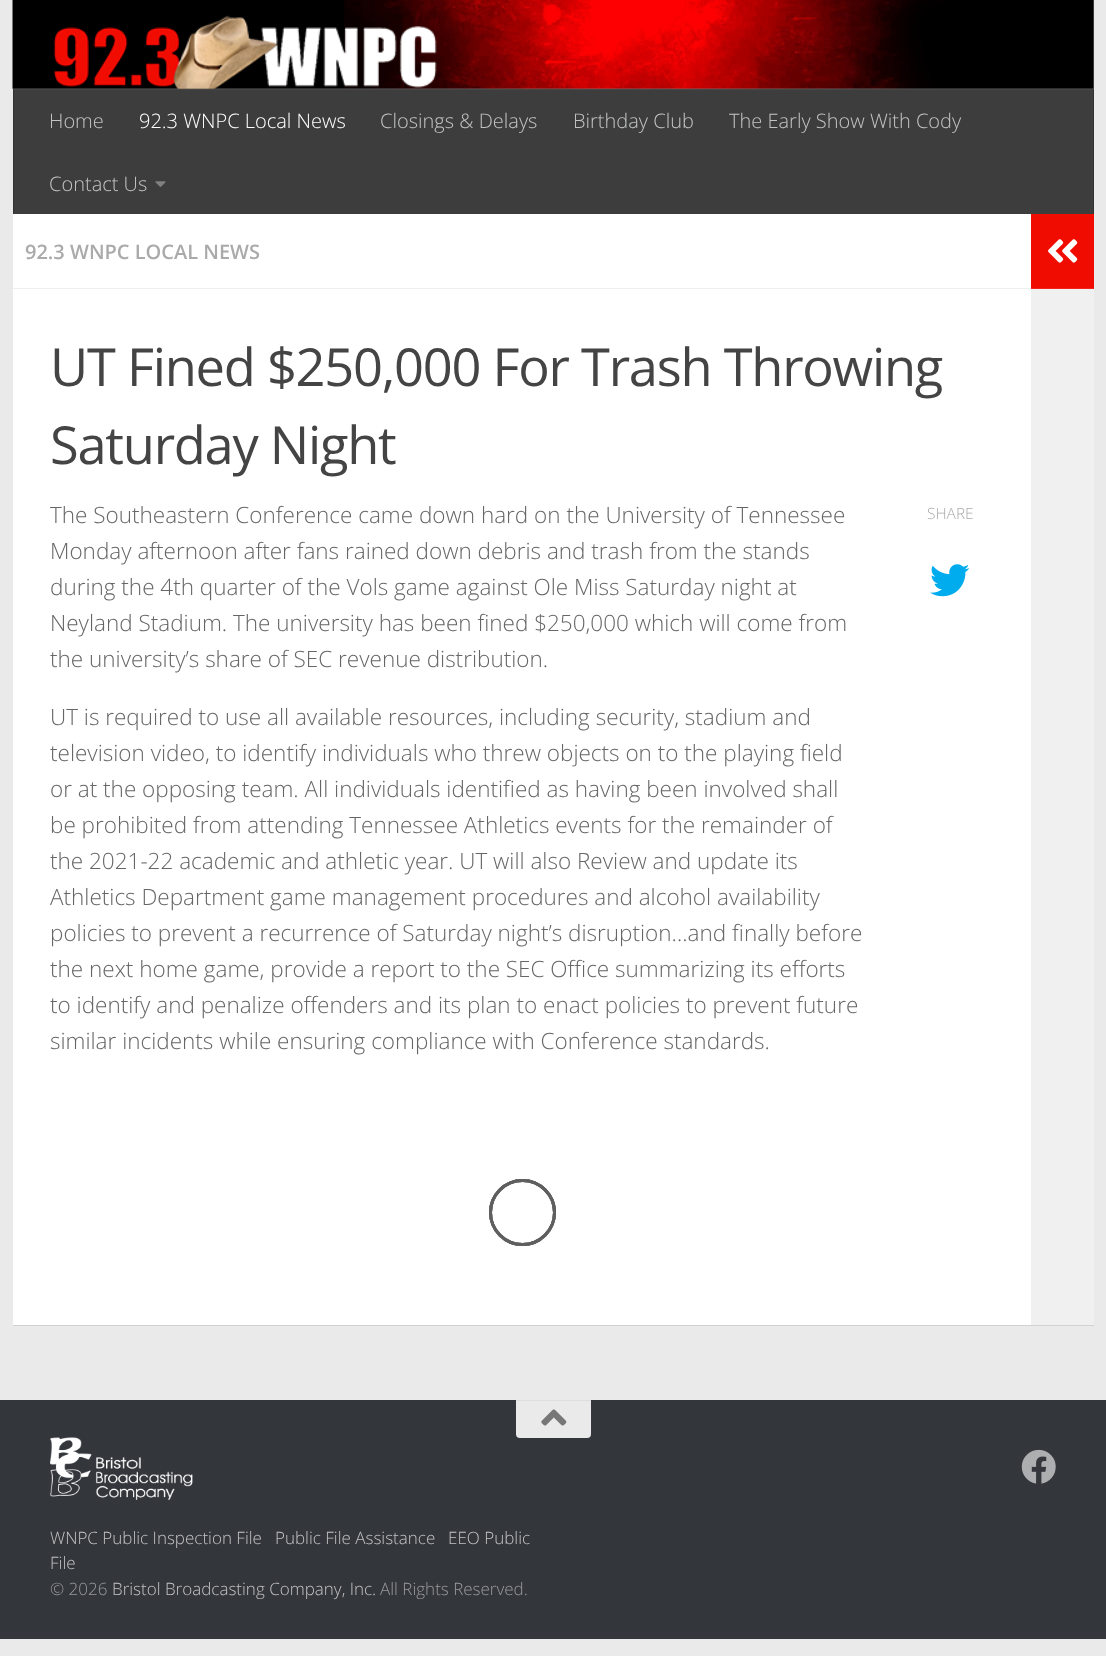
(async () => {
  const canvas = document.querySelector("canvas");
  canvas.width = 1106;
  canvas.height = 1656;
  const ctx = canvas.getContext("2d");
  ctx.miterLimit = 4;
  ctx.fontKerning = "normal";
  async function loadImage(src) {
    const img = new Image();
    img.src = src;
    await img.decode();
    return img;
  }
  let path;

  ctx.fillStyle = "#eaeaea";
  ctx.fillRect(0, 0, 1106, 1656);
  ctx.fillStyle = "rgba(0, 0, 0, 0.1)";
  ctx.filter = "blur(0.5px)";
  ctx.beginPath();
  ctx.rect(13, 215, 1081, 1111);
  ctx.fill();
  ctx.filter = "none";
  ctx.fillStyle = "#eaeaea";
  ctx.fillRect(13, 215, 1081, 74);
  ctx.drawImage(await loadImage("img/1.png"), 12, 0, 1082, 89);
  ctx.drawImage(await loadImage("img/2.png"), 53, 15, 384, 74);
  ctx.fillStyle = "rgba(0, 0, 0, 0.2)";
  path = new Path2D("M13 88V89H1094V213V88Z");
  ctx.fill(path);
  for (const [x, y, w, h, color] of [
    [14, 89, 1079, 125, "#3d3d3d"],
    [1093, 89, 1, 125, "#313131"],
    [13, 89, 1, 125, "#313131"],
    [13, 89, 1081, 1, "rgba(255, 255, 255, 0.05)"],
  ]) {
    ctx.fillStyle = color;
    ctx.fillRect(x, y, w, h);
  }
  ctx.drawImage(await loadImage("img/3.png"), 155, 181, 11, 6);
  ctx.fillStyle = "#ffffff";
  ctx.fillRect(13, 214, 1018, 1111);
  ctx.fillStyle = "#eeeeee";
  ctx.fillRect(13, 288, 1018, 1);
  ctx.drawImage(await loadImage("img/4.png"), 930, 564, 40, 33);
  ctx.beginPath();
  ctx.arc(522.5, 1212.5, 32, 0, Math.PI * 2);
  ctx.strokeStyle = "#5f5f5f";
  ctx.lineWidth = 3;
  ctx.stroke();
  ctx.beginPath();
  ctx.arc(522.5, 1212.5, 32, 0, Math.PI * 2);
  ctx.stroke();
  ctx.beginPath();
  ctx.arc(522.5, 1212.5, 32, 0, Math.PI * 2);
  ctx.stroke();
  ctx.fillStyle = "#f10c02";
  ctx.fillRect(1031, 214, 63, 74);
  ctx.fillStyle = "#f2241b";
  ctx.fillRect(1031, 288, 63, 1);
  ctx.drawImage(await loadImage("img/5.png"), 1048, 239, 30, 24);
  ctx.fillStyle = "#f0f0f0";
  ctx.fillRect(1031, 289, 63, 1036);
  ctx.fillStyle = "#33363b";
  ctx.fillRect(0, 1400, 1106, 239);
  ctx.fillStyle = "#eaeaea";
  ctx.beginPath();
  ctx.roundRect(516, 1400, 75, 38, [0, 0, 4, 4]);
  ctx.fill();
  ctx.fillStyle = "#dedede";
  ctx.fillRect(516, 1400, 75, 1);
  ctx.drawImage(await loadImage("img/6.png"), 541, 1409, 26, 17);
  ctx.drawImage(await loadImage("img/7.png"), 1021, 1449, 35, 35);
  ctx.drawImage(await loadImage("img/8.png"), 50, 1437, 143, 63);
  ctx.font = "300 20px Open Sans";
  ctx.fillStyle = "#c2c3c4";
  ctx.fillText("Home", 49, 128);
  ctx.fillStyle = "#ffffff";
  ctx.fillText("92.3 WNPC Local News", 139, 128);
  ctx.fillStyle = "#c2c3c4";
  for (const [text, x, y] of [
    ["Closings & Delays", 380, 128],
    ["Birthday Club", 573, 128],
    ["The Early Show With Cody", 729, 128],
    ["Contact Us", 49, 191],
  ]) {
    ctx.fillText(text, x, y);
  }
  ctx.font = "600 20px Open Sans";
  ctx.fillStyle = "#aaaaaa";
  ctx.fillText("92.3 WNPC LOCAL NEWS", 25, 259);
  ctx.letterSpacing = "-1.25px";
  ctx.font = "52.4px Open Sans";
  ctx.fillStyle = "#444444";
  ctx.fillText("UT Fined $250,000 For Trash Throwing", 50, 386);
  ctx.fillText("Saturday Night", 50, 464);
  ctx.letterSpacing = "0px";
  ctx.font = "300 22.5px Open Sans";
  ctx.fillStyle = "#666666";
  for (const [text, x, y] of [
    ["The Southeastern Conference came down hard on the University of Tennessee", 50, 523],
    ["Monday afternoon after fans rained down debris and trash from the stands", 50, 559],
    ["during the 4th quarter of the Vols game against Ole Miss Saturday night at", 50, 595],
    ["Neyland Stadium. The university has been fined $250,000 which will come from", 50, 631],
    ["the university’s share of SEC revenue distribution.", 50, 667],
    ["UT is required to use all available resources, including security, stadium and", 50, 725],
    ["television video, to identify individuals who threw objects on to the playing field", 50, 761],
    ["or at the opposing team. All individuals identified as having been involved shall", 50, 797],
    ["be prohibited from attending Tennessee Athletics events for the remainder of", 50, 833],
    ["the 2021-22 academic and athletic year. UT will also Review and update its", 50, 869],
    ["Athletics Department game management procedures and alcohol availability", 50, 905],
    ["policies to prevent a recurrence of Saturday night’s disruption…and finally before", 50, 941],
    ["the next home game, provide a report to the SEC Office summarizing its efforts", 50, 977],
    ["to identify and penalize offenders and its plan to enact policies to prevent future", 50, 1013],
    ["similar incidents while ensuring compliance with Conference standards.", 50, 1049],
  ]) {
    ctx.fillText(text, x, y);
  }
  ctx.font = "300 15.5px Open Sans";
  ctx.fillStyle = "#aaaaaa";
  ctx.fillText("SHARE", 927, 519);
  ctx.font = "300 17px Open Sans";
  ctx.fillStyle = "#c2c3c4";
  for (const [text, x, y] of [
    ["WNPC Public Inspection File", 50, 1544],
    ["Public File Assistance", 275, 1544],
    ["EEO Public", 448, 1544],
    ["File", 50, 1569],
  ]) {
    ctx.fillText(text, x, y);
  }
  ctx.fillStyle = "#999b9d";
  ctx.fillText("© 2026", 50, 1595);
  ctx.fillStyle = "#c2c3c4";
  ctx.fillText("Bristol Broadcasting Company, Inc.", 112, 1595);
  ctx.fillStyle = "#999b9d";
  ctx.fillText("All Rights Reserved.", 380, 1595);
})();
